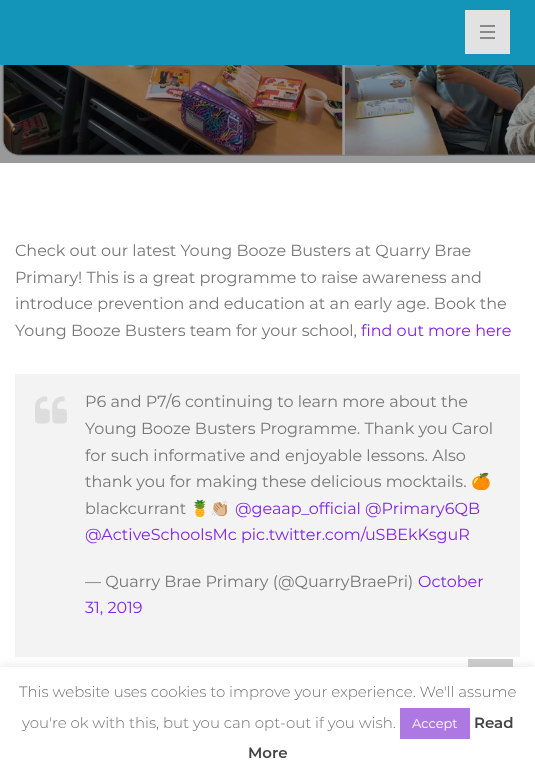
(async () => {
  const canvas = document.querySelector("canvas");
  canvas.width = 535;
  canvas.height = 776;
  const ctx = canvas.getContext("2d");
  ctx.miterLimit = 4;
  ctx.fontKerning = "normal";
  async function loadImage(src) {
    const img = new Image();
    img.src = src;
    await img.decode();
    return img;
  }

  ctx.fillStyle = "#ffffff";
  ctx.fillRect(0, 0, 535, 776);
  for (const [x, y, w, h, color] of [
    [0, 65, 535, 98, "#999999"],
    [0, 0, 535, 65, "#1395ba"],
    [465, 10, 45, 44, "#e2e2e2"],
    [480, 31, 15, 2, "#888888"],
    [480, 25, 15, 2, "#888888"],
    [480, 37, 15, 2, "#888888"],
  ]) {
    ctx.fillStyle = color;
    ctx.fillRect(x, y, w, h);
  }
  ctx.drawImage(await loadImage("img/1.png"), 2, 65, 533, 91);
  ctx.fillStyle = "#f3f3f3";
  ctx.fillRect(15, 374, 505, 283);
  ctx.drawImage(await loadImage("img/2.png"), 35, 396, 32, 28);
  ctx.fillStyle = "#cccccc";
  ctx.fillRect(468, 659, 45, 8);
  ctx.fillStyle = "rgba(172, 171, 171, 0.3)";
  ctx.filter = "blur(5px)";
  ctx.beginPath();
  ctx.rect(0, 666, 535, 109);
  ctx.fill();
  ctx.filter = "none";
  ctx.fillStyle = "#ffffff";
  ctx.fillRect(0, 667, 535, 109);
  ctx.fillStyle = "#ad78e2";
  ctx.fillRect(400, 708, 70, 31);
  ctx.font = "16px Montserrat";
  ctx.fillStyle = "#777777";
  for (const [text, x, y] of [
    ["Check out our latest Young Booze Busters at Quarry Brae", 15, 256],
    ["Primary! This is a great programme to raise awareness and", 15, 283],
    ["introduce prevention and education at an early age. Book the", 15, 309],
    ["Young Booze Busters team for your school,", 15, 336],
  ]) {
    ctx.fillText(text, x, y);
  }
  ctx.fillStyle = "#8224e3";
  ctx.fillText("find out more here", 361, 336);
  ctx.fillStyle = "#777777";
  for (const [text, x, y] of [
    ["P6 and P7/6 continuing to learn more about the", 85, 407],
    ["Young Booze Busters Programme. Thank you Carol", 85, 434],
    ["for such informative and enjoyable lessons. Also", 85, 461],
    ["thank you for making these delicious mocktails.", 85, 487],
  ]) {
    ctx.fillText(text, x, y);
  }
  ctx.font = "16px Noto Color Emoji";
  ctx.fillText("🍊", 471, 487);
  ctx.font = "16px Montserrat";
  ctx.fillText("blackcurrant", 85, 514);
  ctx.font = "16px Noto Color Emoji";
  ctx.fillText("🍍👏🏼", 190, 514);
  ctx.font = "16px Montserrat";
  ctx.fillStyle = "#8224e3";
  ctx.fillText("@geaap_official @Primary6QB", 235, 514);
  ctx.fillText("@ActiveSchoolsMc pic.twitter.com/uSBEkKsguR", 85, 540);
  ctx.fillStyle = "#777777";
  ctx.fillText("— Quarry Brae Primary (@QuarryBraePri)", 85, 587);
  ctx.fillStyle = "#8224e3";
  ctx.fillText("October", 418, 587);
  ctx.fillText("31, 2019", 85, 613);
  ctx.font = "300 15px Montserrat";
  ctx.fillStyle = "#707070";
  ctx.fillText("This website uses cookies to improve your experience. We'll assume", 19, 697);
  ctx.fillText("you're ok with this, but you can opt-out if you wish.", 22, 728);
  ctx.font = "13px Montserrat";
  ctx.fillStyle = "#ffffff";
  ctx.fillText("Accept", 412, 728);
  ctx.font = "600 15px Montserrat";
  ctx.fillStyle = "#444444";
  ctx.fillText("Read", 474, 728);
  ctx.fillText("More", 248, 758);
})();
